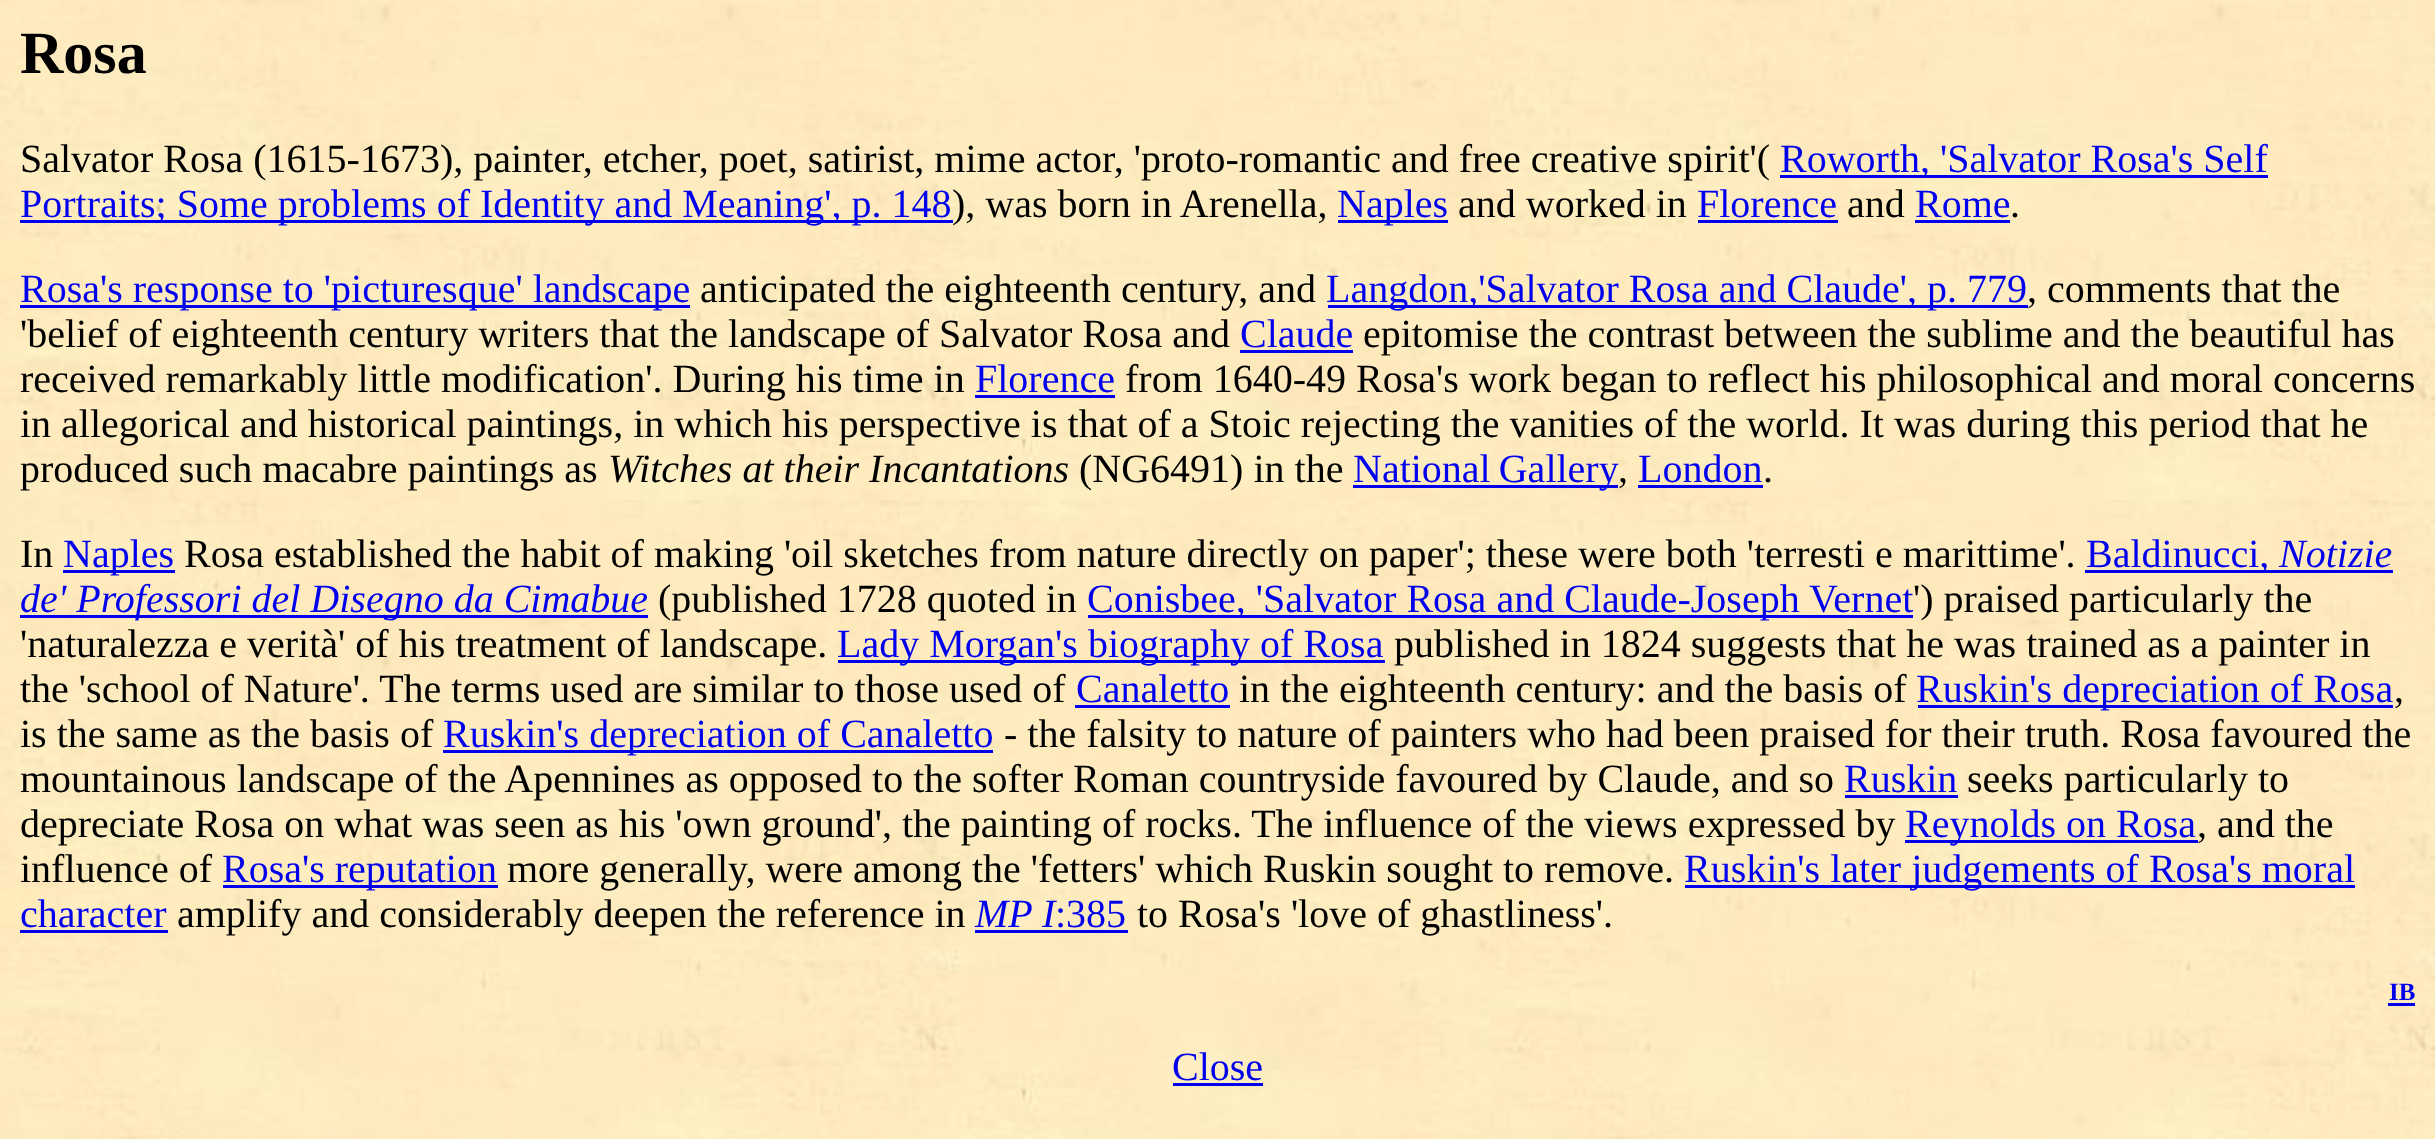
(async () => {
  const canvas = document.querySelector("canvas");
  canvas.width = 2435;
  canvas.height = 1139;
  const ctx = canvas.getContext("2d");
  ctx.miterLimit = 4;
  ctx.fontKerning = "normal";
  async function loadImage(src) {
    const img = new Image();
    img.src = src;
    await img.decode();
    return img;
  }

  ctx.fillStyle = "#ffffff";
  ctx.fillRect(0, 0, 2435, 1139);
  ctx.drawImage(await loadImage("img/1.png"), 0, 0, 2435, 1139);
  for (const [x, y, w, h, color] of [
    [1780, 175, 488, 3, "#0000ee"],
    [20, 220, 933, 3, "#0000ee"],
    [1338, 220, 110, 3, "#0000ee"],
    [1698, 220, 140, 3, "#0000ee"],
    [1915, 220, 95, 3, "#0000ee"],
    [20, 305, 670, 3, "#0000ee"],
    [1328, 305, 700, 3, "#0000ee"],
    [1240, 350, 113, 3, "#0000ee"],
    [975, 395, 140, 3, "#0000ee"],
    [1353, 485, 265, 3, "#0000ee"],
    [1638, 485, 125, 3, "#0000ee"],
    [63, 570, 112, 3, "#0000ee"],
    [2085, 570, 308, 3, "#0000ee"],
    [20, 615, 628, 3, "#0000ee"],
    [1088, 615, 825, 3, "#0000ee"],
    [838, 660, 547, 3, "#0000ee"],
    [1075, 705, 155, 3, "#0000ee"],
    [1918, 705, 475, 3, "#0000ee"],
    [443, 750, 550, 3, "#0000ee"],
    [1845, 795, 113, 3, "#0000ee"],
    [1905, 840, 293, 3, "#0000ee"],
    [223, 885, 275, 3, "#0000ee"],
    [1685, 885, 670, 3, "#0000ee"],
    [20, 930, 148, 3, "#0000ee"],
    [975, 930, 153, 3, "#0000ee"],
    [2388, 1003, 27, 3, "#0000ee"],
    [1173, 1083, 90, 3, "#0000ee"],
  ]) {
    ctx.fillStyle = color;
    ctx.fillRect(x, y, w, h);
  }
  ctx.font = "bold 60px Liberation Serif";
  ctx.fillStyle = "#000000";
  ctx.fillText("Rosa", 20, 73);
  ctx.font = "40px Liberation Serif";
  ctx.fillText("Salvator Rosa (1615-1673), painter, etcher, poet, satirist, mime actor, 'proto-romantic and free creative spirit'(", 20, 172);
  ctx.fillStyle = "#0000ee";
  ctx.fillText("Roworth, 'Salvator Rosa's Self", 1780, 172);
  ctx.fillText("Portraits; Some problems of Identity and Meaning', p. 148", 20, 217);
  ctx.fillStyle = "#000000";
  ctx.fillText("), was born in Arenella,", 952, 217);
  ctx.fillStyle = "#0000ee";
  ctx.fillText("Naples", 1337, 217);
  ctx.fillStyle = "#000000";
  ctx.fillText("and worked in", 1458, 217);
  ctx.fillStyle = "#0000ee";
  ctx.fillText("Florence", 1697, 217);
  ctx.fillStyle = "#000000";
  ctx.fillText("and", 1847, 217);
  ctx.fillStyle = "#0000ee";
  ctx.fillText("Rome", 1915, 217);
  ctx.fillStyle = "#000000";
  ctx.fillText(".", 2010, 217);
  ctx.fillStyle = "#0000ee";
  ctx.fillText("Rosa's response to 'picturesque' landscape", 20, 302);
  ctx.fillStyle = "#000000";
  ctx.fillText("anticipated the eighteenth century, and", 700, 302);
  ctx.fillStyle = "#0000ee";
  ctx.fillText("Langdon,'Salvator Rosa and Claude', p. 779", 1326, 302);
  ctx.fillStyle = "#000000";
  ctx.fillText(", comments that the", 2027, 302);
  ctx.fillText("'belief of eighteenth century writers that the landscape of Salvator Rosa and", 20, 347);
  ctx.fillStyle = "#0000ee";
  ctx.fillText("Claude", 1240, 347);
  ctx.fillStyle = "#000000";
  ctx.fillText("epitomise the contrast between the sublime and the beautiful has", 1363, 347);
  ctx.fillText("received remarkably little modification'. During his time in", 20, 392);
  ctx.fillStyle = "#0000ee";
  ctx.fillText("Florence", 975, 392);
  ctx.fillStyle = "#000000";
  for (const [text, x, y] of [
    ["from 1640-49 Rosa's work began to reflect his philosophical and moral concerns", 1125, 392],
    ["in allegorical and historical paintings, in which his perspective is that of a Stoic rejecting the vanities of the world. It was during this period that he", 20, 437],
    ["produced such macabre paintings as", 20, 482],
  ]) {
    ctx.fillText(text, x, y);
  }
  ctx.font = "italic 40px Liberation Serif";
  ctx.fillText("Witches at their Incantations", 608, 482);
  ctx.font = "40px Liberation Serif";
  ctx.fillText("(NG6491) in the", 1079, 482);
  ctx.wordSpacing = "-2px";
  ctx.fillStyle = "#0000ee";
  ctx.fillText("National Gallery", 1353, 482);
  ctx.wordSpacing = "0px";
  ctx.fillStyle = "#000000";
  ctx.fillText(",", 1618, 482);
  ctx.fillStyle = "#0000ee";
  ctx.fillText("London", 1638, 482);
  ctx.fillStyle = "#000000";
  ctx.fillText(".", 1763, 482);
  ctx.fillText("In", 20, 567);
  ctx.fillStyle = "#0000ee";
  ctx.fillText("Naples", 63, 567);
  ctx.fillStyle = "#000000";
  ctx.fillText("Rosa established the habit of making 'oil sketches from nature directly on paper'; these were both 'terresti e marittime'.", 184, 567);
  ctx.fillStyle = "#0000ee";
  ctx.fillText("Baldinucci,", 2086, 567);
  ctx.font = "italic 40px Liberation Serif";
  ctx.fillText("Notizie", 2279, 567);
  ctx.fillText("de' Professori del Disegno da Cimabue", 20, 612);
  ctx.font = "40px Liberation Serif";
  ctx.fillStyle = "#000000";
  ctx.fillText("(published 1728 quoted in", 658, 612);
  ctx.fillStyle = "#0000ee";
  ctx.fillText("Conisbee, 'Salvator Rosa and Claude-Joseph Vernet", 1087, 612);
  ctx.fillStyle = "#000000";
  ctx.fillText("') praised particularly the", 1913, 612);
  ctx.fillText("'naturalezza e verità' of his treatment of landscape.", 20, 657);
  ctx.fillStyle = "#0000ee";
  ctx.fillText("Lady Morgan's biography of Rosa", 837, 657);
  ctx.fillStyle = "#000000";
  ctx.fillText("published in 1824 suggests that he was trained as a painter in", 1394, 657);
  ctx.fillText("the 'school of Nature'. The terms used are similar to those used of", 20, 702);
  ctx.fillStyle = "#0000ee";
  ctx.fillText("Canaletto", 1076, 702);
  ctx.fillStyle = "#000000";
  ctx.fillText("in the eighteenth century: and the basis of", 1239, 702);
  ctx.fillStyle = "#0000ee";
  ctx.fillText("Ruskin's depreciation of Rosa", 1916, 702);
  ctx.fillStyle = "#000000";
  ctx.fillText(",", 2394, 702);
  ctx.fillText("is the same as the basis of", 20, 747);
  ctx.fillStyle = "#0000ee";
  ctx.fillText("Ruskin's depreciation of Canaletto", 443, 747);
  ctx.fillStyle = "#000000";
  ctx.fillText("- the falsity to nature of painters who had been praised for their truth. Rosa favoured the", 1004, 747);
  ctx.fillText("mountainous landscape of the Apennines as opposed to the softer Roman countryside favoured by Claude, and so", 20, 792);
  ctx.fillStyle = "#0000ee";
  ctx.fillText("Ruskin", 1844, 792);
  ctx.fillStyle = "#000000";
  ctx.fillText("seeks particularly to", 1967, 792);
  ctx.fillText("depreciate Rosa on what was seen as his 'own ground', the painting of rocks. The influence of the views expressed by", 20, 837);
  ctx.fillStyle = "#0000ee";
  ctx.fillText("Reynolds on Rosa", 1905, 837);
  ctx.fillStyle = "#000000";
  ctx.fillText(", and the", 2197, 837);
  ctx.fillText("influence of", 20, 882);
  ctx.fillStyle = "#0000ee";
  ctx.fillText("Rosa's reputation", 222, 882);
  ctx.fillStyle = "#000000";
  ctx.fillText("more generally, were among the 'fetters' which Ruskin sought to remove.", 507, 882);
  ctx.fillStyle = "#0000ee";
  ctx.fillText("Ruskin's later judgements of Rosa's moral", 1684, 882);
  ctx.fillText("character", 20, 927);
  ctx.fillStyle = "#000000";
  ctx.fillText("amplify and considerably deepen the reference in", 177, 927);
  ctx.font = "italic 40px Liberation Serif";
  ctx.fillStyle = "#0000ee";
  ctx.fillText("MP I", 975, 927);
  ctx.font = "40px Liberation Serif";
  ctx.fillText(":385", 1055, 927);
  ctx.fillStyle = "#000000";
  ctx.fillText("to Rosa's 'love of ghastliness'.", 1137, 927);
  ctx.font = "bold 25px Liberation Serif";
  ctx.fillStyle = "#0000ee";
  ctx.fillText("IB", 2389, 1000);
  ctx.font = "40px Liberation Serif";
  ctx.fillText("Close", 1172, 1080);
})();
